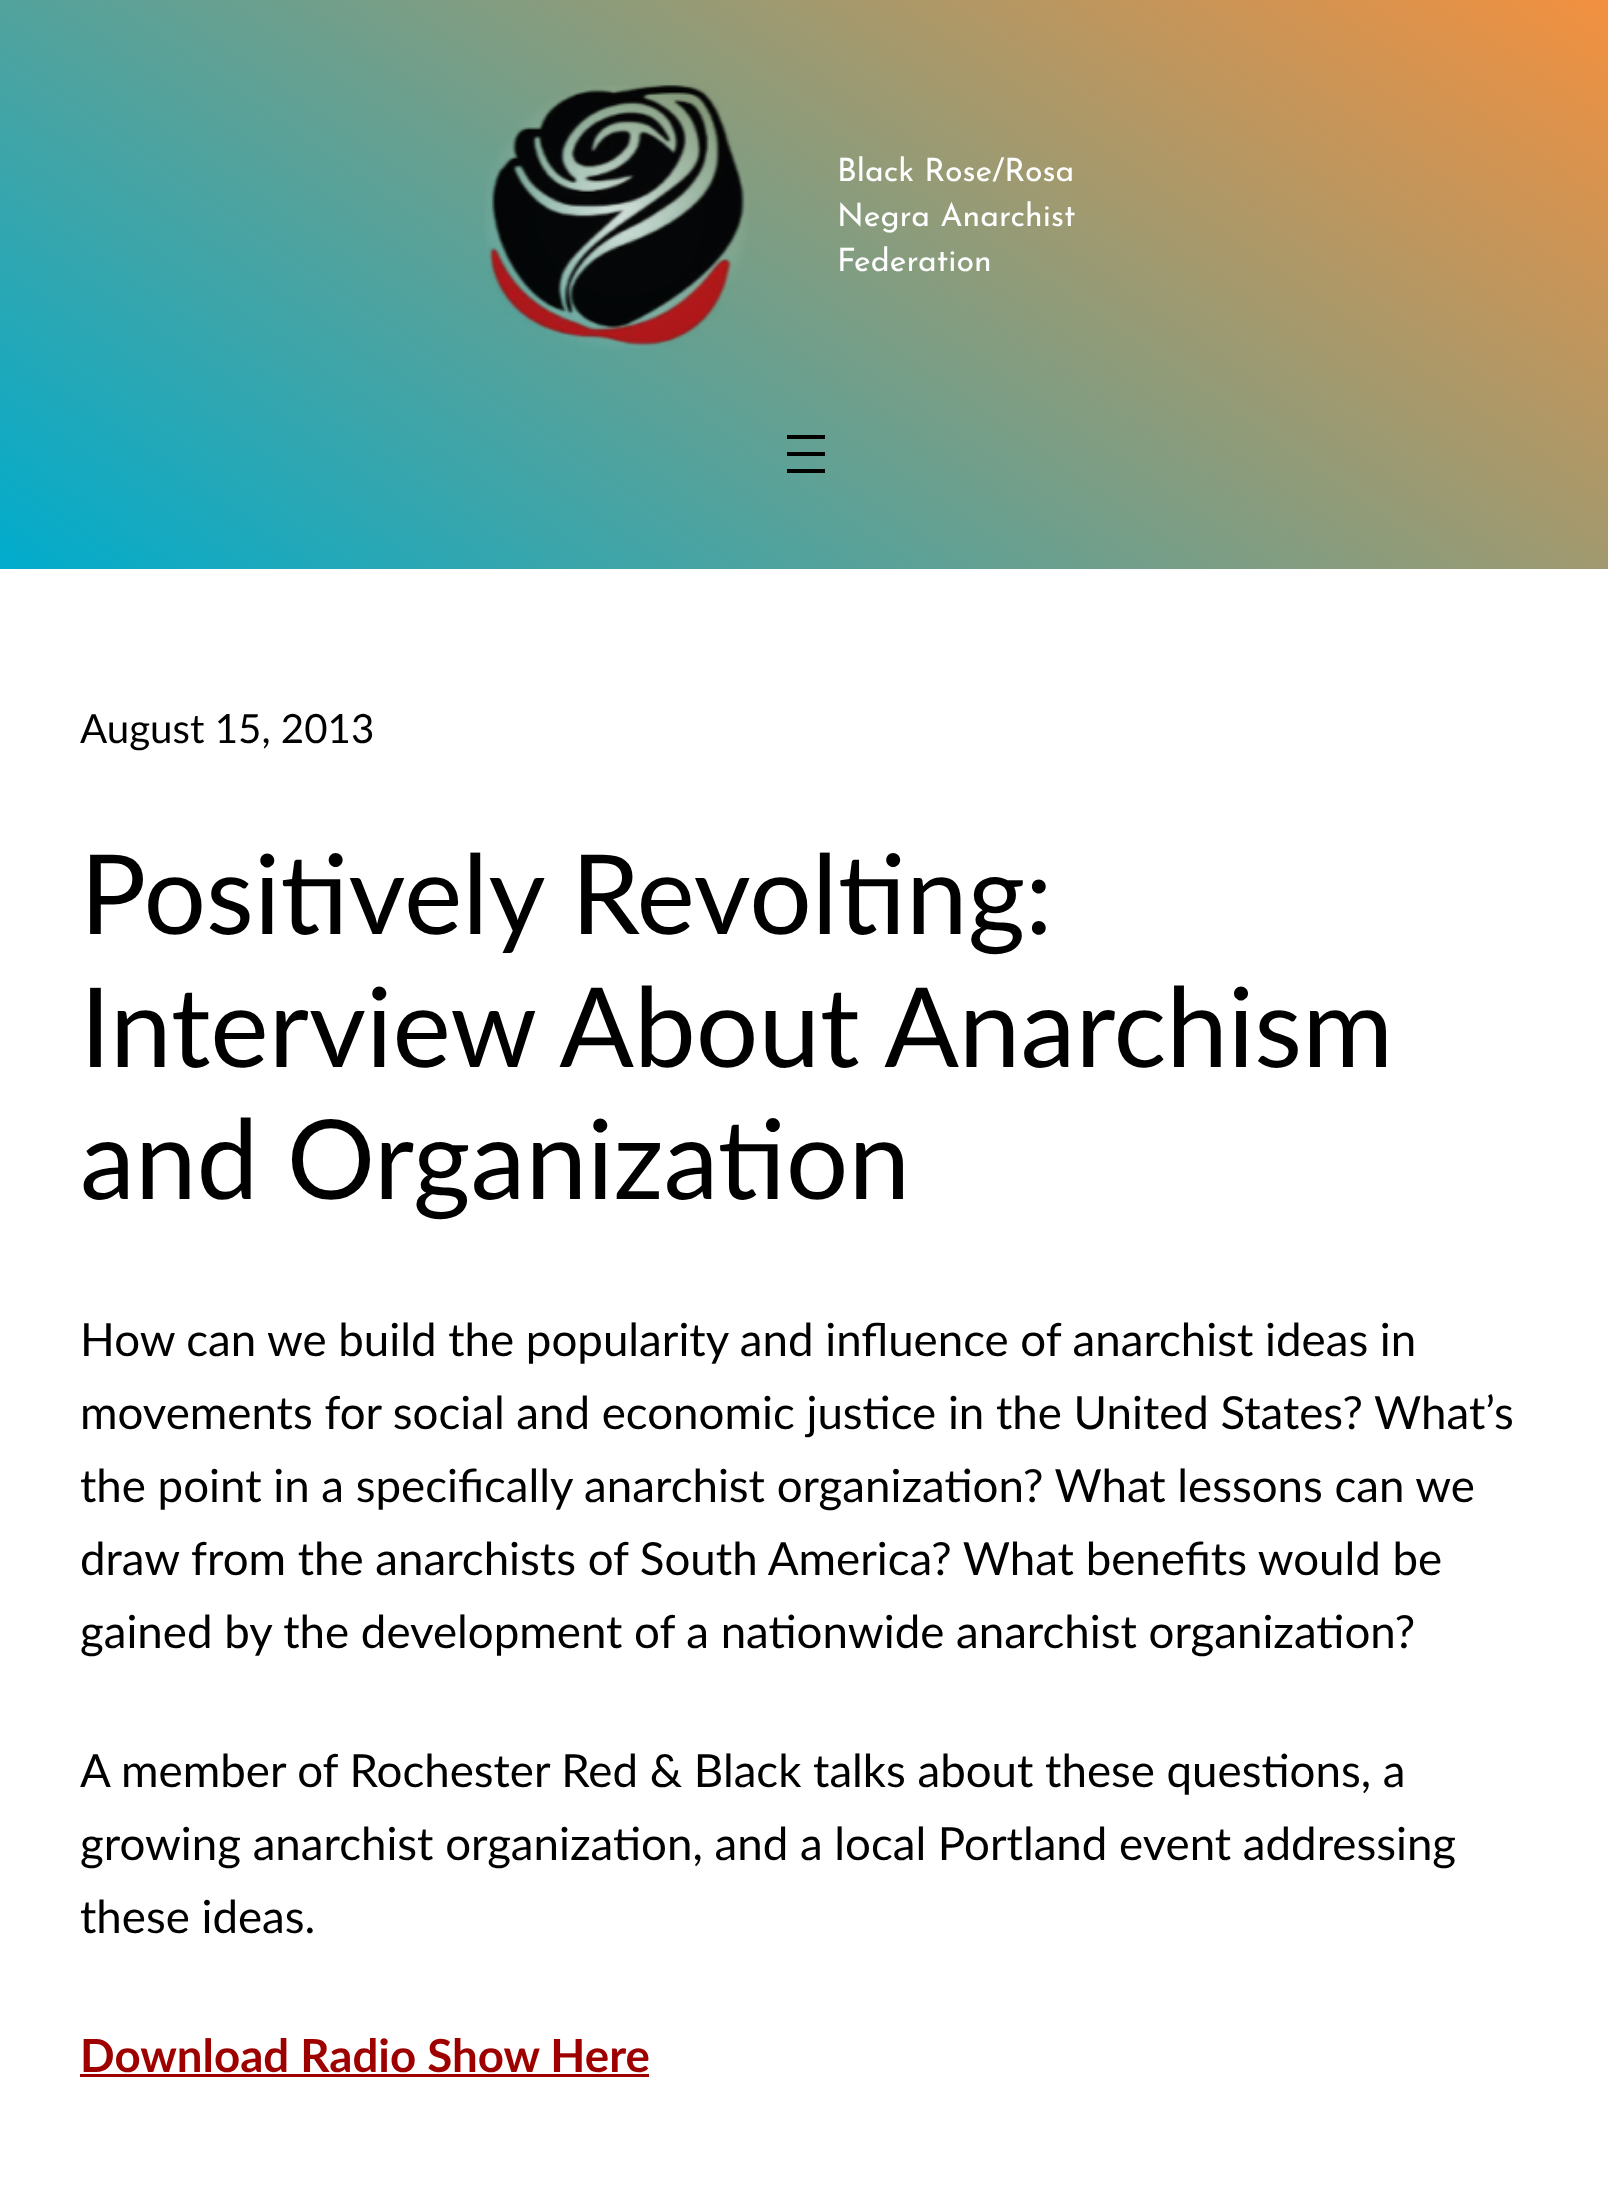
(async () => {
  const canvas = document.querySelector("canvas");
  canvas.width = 1608;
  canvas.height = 2204;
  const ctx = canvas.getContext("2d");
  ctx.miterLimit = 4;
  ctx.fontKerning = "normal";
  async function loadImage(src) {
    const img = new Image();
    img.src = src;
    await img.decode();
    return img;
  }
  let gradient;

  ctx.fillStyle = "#ffffff";
  ctx.fillRect(0, 0, 1608, 2204);
  gradient = ctx.createLinearGradient(1203, -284, 406, 854);
  gradient.addColorStop(0, "#f3903f");
  gradient.addColorStop(1, "#00accd");
  ctx.fillStyle = gradient;
  ctx.fillRect(0, 0, 1608, 569);
  gradient = ctx.createRadialGradient(616, 217, 0, 616, 217, 194);
  gradient.addColorStop(0, "rgba(255, 255, 255, 0.7)");
  gradient.addColorStop(0.7, "rgba(255, 255, 255, 0)");
  ctx.fillStyle = gradient;
  ctx.fillRect(484, 85, 264, 264);
  ctx.drawImage(await loadImage("img/1.png"), 488, 84, 258, 262);
  for (const [x, y, w, h, color] of [
    [787, 435, 38, 4, "#000000"],
    [787, 452, 38, 4, "#000000"],
    [787, 469, 38, 4, "#000000"],
    [80, 2074, 569, 3, "#9e0000"],
  ]) {
    ctx.fillStyle = color;
    ctx.fillRect(x, y, w, h);
  }
  ctx.font = "32px Josefin Sans";
  ctx.fillStyle = "#ffffff";
  for (const [text, x, y] of [
    ["Black Rose/Rosa", 837, 181],
    ["Negra Anarchist", 837, 226],
    ["Federation", 837, 271],
  ]) {
    ctx.fillText(text, x, y);
  }
  ctx.font = "40.25px Lato";
  ctx.fillStyle = "#000000";
  ctx.fillText("August 15, 2013", 80, 743);
  ctx.font = "110.5px Lato";
  for (const [text, x, y] of [
    ["Positively Revolting:", 80, 934],
    ["Interview About Anarchism", 80, 1067],
    ["and Organization", 80, 1199],
  ]) {
    ctx.fillText(text, x, y);
  }
  ctx.font = "45.65px Lato";
  for (const [text, x, y] of [
    ["How can we build the popularity and influence of anarchist ideas in", 80, 1356],
    ["movements for social and economic justice in the United States? What’s", 80, 1429],
    ["the point in a specifically anarchist organization? What lessons can we", 80, 1502],
    ["draw from the anarchists of South America? What benefits would be", 80, 1575],
    ["gained by the development of a nationwide anarchist organization?", 80, 1648],
    ["A member of Rochester Red & Black talks about these questions, a", 80, 1787],
    ["growing anarchist organization, and a local Portland event addressing", 80, 1860],
    ["these ideas.", 80, 1933],
  ]) {
    ctx.fillText(text, x, y);
  }
  ctx.font = "bold 45.65px Lato";
  ctx.fillStyle = "#9e0000";
  ctx.fillText("Download Radio Show Here", 80, 2072);
})();
